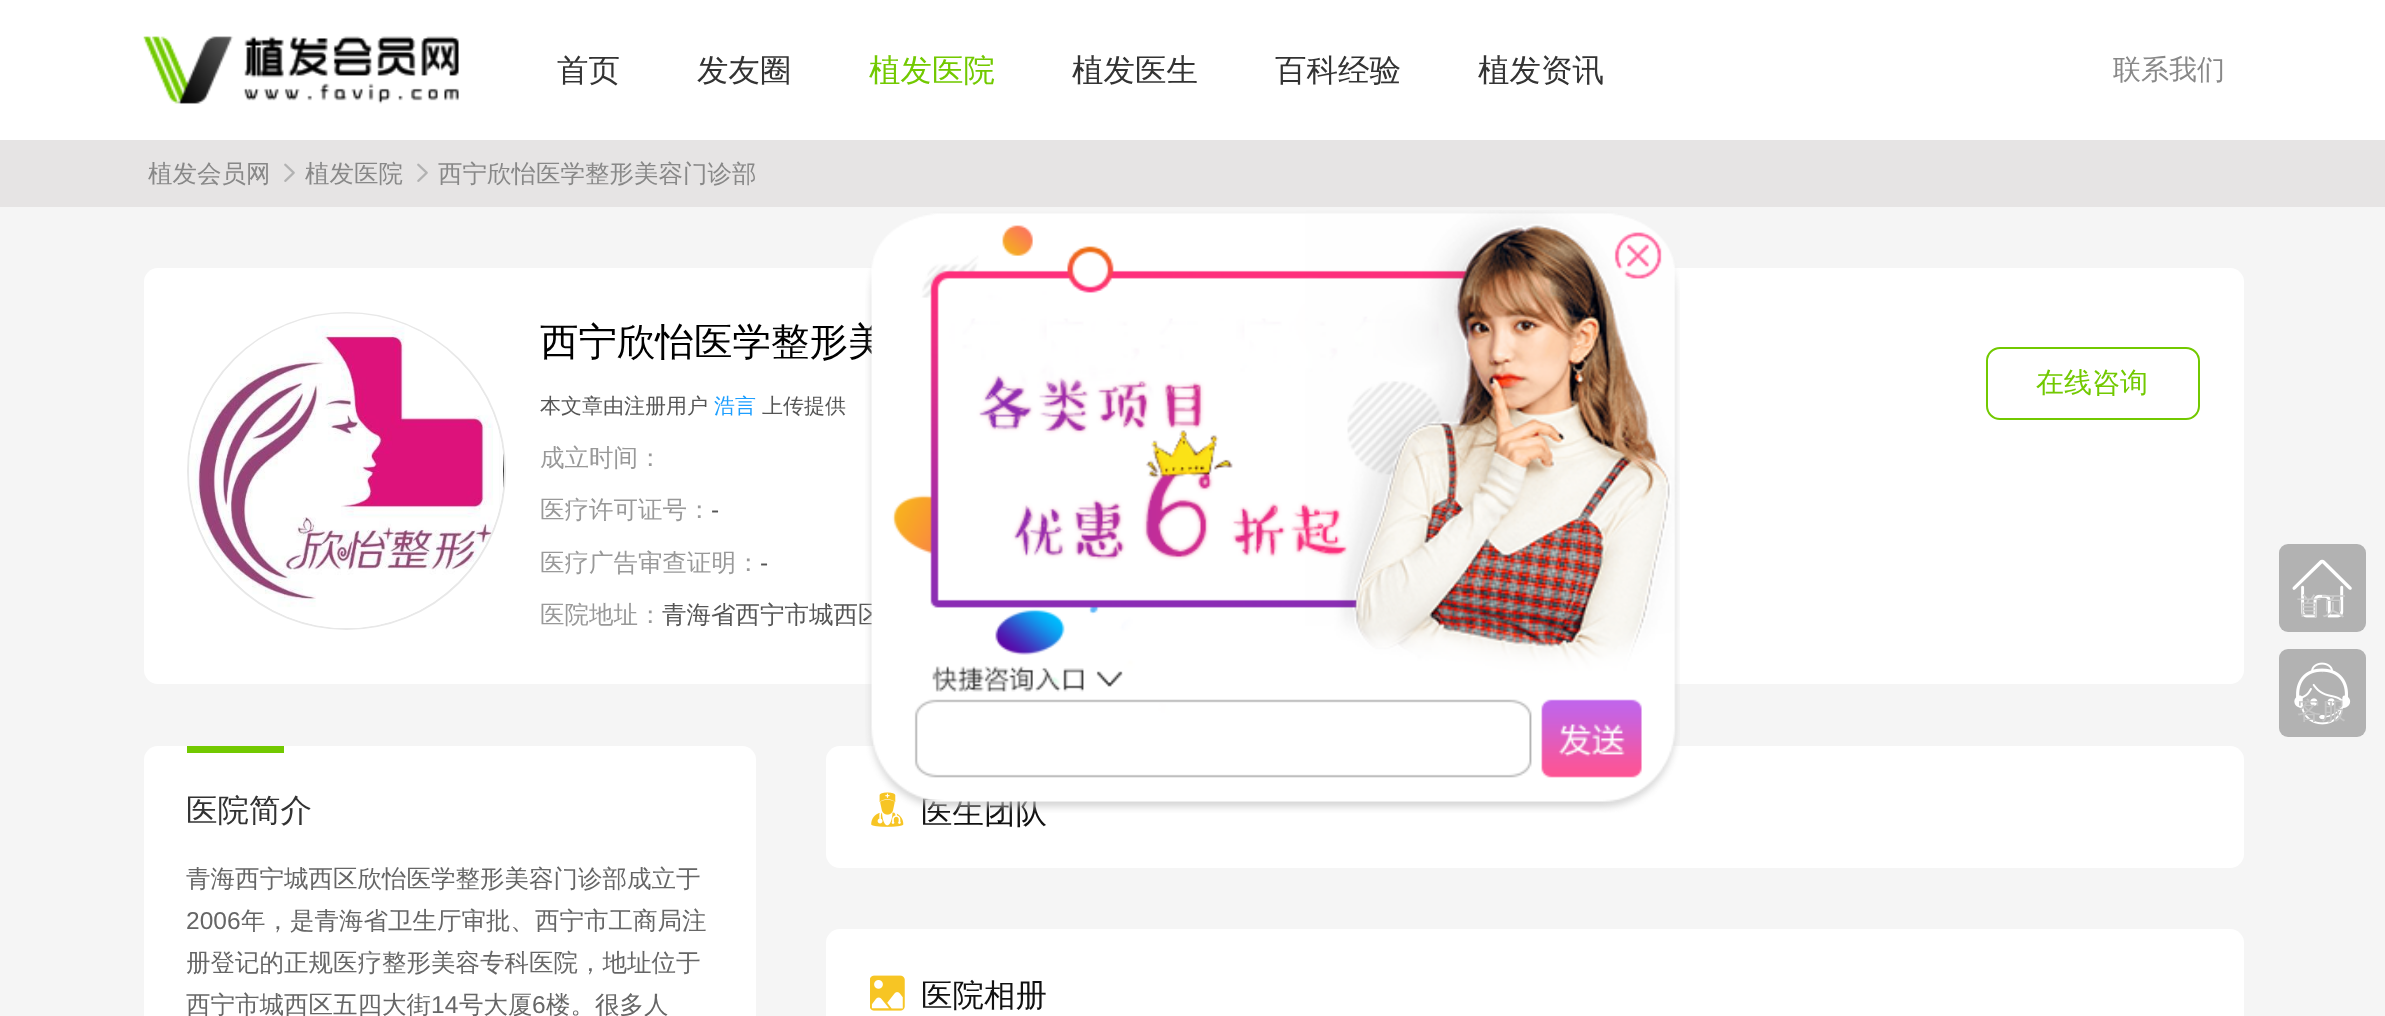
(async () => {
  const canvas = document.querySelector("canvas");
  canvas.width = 2385;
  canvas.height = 1016;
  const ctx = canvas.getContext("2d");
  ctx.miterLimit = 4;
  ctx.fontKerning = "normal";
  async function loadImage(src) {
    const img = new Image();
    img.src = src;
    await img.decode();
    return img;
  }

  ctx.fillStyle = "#f5f5f5";
  ctx.fillRect(0, 0, 2385, 1016);
  ctx.fillStyle = "#ffffff";
  ctx.fillRect(0, 0, 2385, 140);
  ctx.drawImage(await loadImage("img/1.png"), 143, 36, 316, 68);
  ctx.fillStyle = "#e6e4e4";
  ctx.fillRect(0, 140, 2385, 67);
  ctx.drawImage(await loadImage("img/2.png"), 284, 163, 11, 19);
  ctx.drawImage(await loadImage("img/2.png"), 417, 163, 11, 19);
  ctx.fillStyle = "#ffffff";
  ctx.beginPath();
  ctx.roundRect(144, 268, 2100, 416, 14);
  ctx.fill();
  ctx.beginPath();
  ctx.roundRect(188, 313, 317, 316, 158);
  ctx.strokeStyle = "#e8e8e8";
  ctx.lineWidth = 2;
  ctx.stroke();
  ctx.drawImage(await loadImage("img/4.png"), 189, 313, 315, 315);
  ctx.beginPath();
  ctx.roundRect(1987, 348, 212, 71, 13);
  ctx.strokeStyle = "#72c900";
  ctx.stroke();
  ctx.beginPath();
  ctx.roundRect(144, 746, 612, 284, 14);
  ctx.fill();
  ctx.fillStyle = "#72c900";
  ctx.fillRect(187, 746, 97, 7);
  ctx.fillStyle = "#ffffff";
  ctx.beginPath();
  ctx.roundRect(826, 746, 1418, 122, 14);
  ctx.fill();
  ctx.drawImage(await loadImage("img/5.png"), 871, 792, 33, 35);
  ctx.beginPath();
  ctx.roundRect(826, 929, 1418, 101, 14);
  ctx.fill();
  ctx.drawImage(await loadImage("img/6.png"), 870, 975, 35, 36);
  ctx.fillStyle = "#b2b2b2";
  ctx.beginPath();
  ctx.roundRect(2279, 544, 87, 88, 9);
  ctx.fill();
  ctx.drawImage(await loadImage("img/7.png"), 2292, 559, 60, 59);
  ctx.beginPath();
  ctx.roundRect(2279, 649, 87, 88, 9);
  ctx.fill();
  ctx.drawImage(await loadImage("img/8.png"), 2294, 662, 57, 63);
  ctx.font = "500 31.5px WenQuanYi Zen Hei";
  ctx.fillStyle = "#333333";
  ctx.fillText("首页", 557, 81);
  ctx.fillText("发友圈", 697, 81);
  ctx.fillStyle = "#72c900";
  ctx.fillText("植发医院", 869, 81);
  ctx.fillStyle = "#333333";
  for (const [text, x, y] of [
    ["植发医生", 1072, 81],
    ["百科经验", 1275, 81],
    ["植发资讯", 1478, 81],
  ]) {
    ctx.fillText(text, x, y);
  }
  ctx.font = "500 28px WenQuanYi Zen Hei";
  ctx.fillStyle = "#888888";
  ctx.fillText("联系我们", 2113, 79);
  ctx.font = "500 24.5px WenQuanYi Zen Hei";
  for (const [text, x, y] of [
    ["植发会员网", 148, 182],
    ["植发医院", 305, 182],
    ["西宁欣怡医学整形美容门诊部", 438, 182],
  ]) {
    ctx.fillText(text, x, y);
  }
  ctx.font = "500 38.5px WenQuanYi Zen Hei";
  ctx.fillStyle = "#000000";
  ctx.fillText("西宁欣怡医学整形美", 540, 355);
  ctx.font = "500 21px WenQuanYi Zen Hei";
  ctx.fillStyle = "#555555";
  ctx.fillText("本文章由注册用户", 540, 413);
  ctx.fillStyle = "#1e9fff";
  ctx.fillText("浩言", 714, 413);
  ctx.fillStyle = "#555555";
  ctx.fillText("上传提供", 762, 413);
  ctx.font = "500 24.5px WenQuanYi Zen Hei";
  ctx.fillStyle = "#999999";
  ctx.fillText("成立时间：", 540, 466);
  ctx.fillText("医疗许可证号：", 540, 518);
  ctx.font = "24.5px Liberation Sans";
  ctx.fillStyle = "#555555";
  ctx.fillText("-", 711, 518);
  ctx.font = "500 24.5px WenQuanYi Zen Hei";
  ctx.fillStyle = "#999999";
  ctx.fillText("医疗广告审查证明：", 540, 571);
  ctx.font = "24.5px Liberation Sans";
  ctx.fillStyle = "#555555";
  ctx.fillText("-", 760, 571);
  ctx.font = "500 24.5px WenQuanYi Zen Hei";
  ctx.fillStyle = "#999999";
  ctx.fillText("医院地址：", 540, 623);
  ctx.fillStyle = "#555555";
  ctx.fillText("青海省西宁市城西区", 662, 623);
  ctx.font = "500 28px WenQuanYi Zen Hei";
  ctx.fillStyle = "#72c900";
  ctx.fillText("在线咨询", 2036, 392);
  ctx.font = "500 31.5px WenQuanYi Zen Hei";
  ctx.fillStyle = "#333333";
  ctx.fillText("医院简介", 186, 821);
  ctx.font = "500 24.5px WenQuanYi Zen Hei";
  ctx.fillStyle = "#666666";
  ctx.fillText("青海西宁城西区欣怡医学整形美容门诊部成立于", 186, 887);
  ctx.font = "24.5px Liberation Sans";
  ctx.fillText("2006", 186, 929);
  ctx.font = "500 24.5px WenQuanYi Zen Hei";
  for (const [text, x, y] of [
    ["年，是青海省卫生厅审批、西宁市工商局注", 241, 929],
    ["册登记的正规医疗整形美容专科医院，地址位于", 186, 971],
    ["西宁市城西区五四大街", 186, 1013],
  ]) {
    ctx.fillText(text, x, y);
  }
  ctx.font = "24.5px Liberation Sans";
  ctx.fillText("14", 431, 1013);
  ctx.font = "500 24.5px WenQuanYi Zen Hei";
  ctx.fillText("号大厦", 459, 1013);
  ctx.font = "24.5px Liberation Sans";
  ctx.fillText("6", 532, 1013);
  ctx.font = "500 24.5px WenQuanYi Zen Hei";
  ctx.fillText("楼。很多人", 546, 1013);
  ctx.font = "500 31.5px WenQuanYi Zen Hei";
  ctx.fillStyle = "#111111";
  ctx.fillText("医生团队", 921, 823);
  ctx.drawImage(await loadImage("img/3.png"), 865, 210, 815, 603);
  ctx.fillText("医院相册", 921, 1006);
  ctx.font = "500 24.5px WenQuanYi Zen Hei";
  ctx.fillStyle = "#cdcdcd";
  ctx.fillText("首页", 2297, 614);
  ctx.fillStyle = "#c5c5c5";
  ctx.fillText("客服", 2297, 719);
})();
